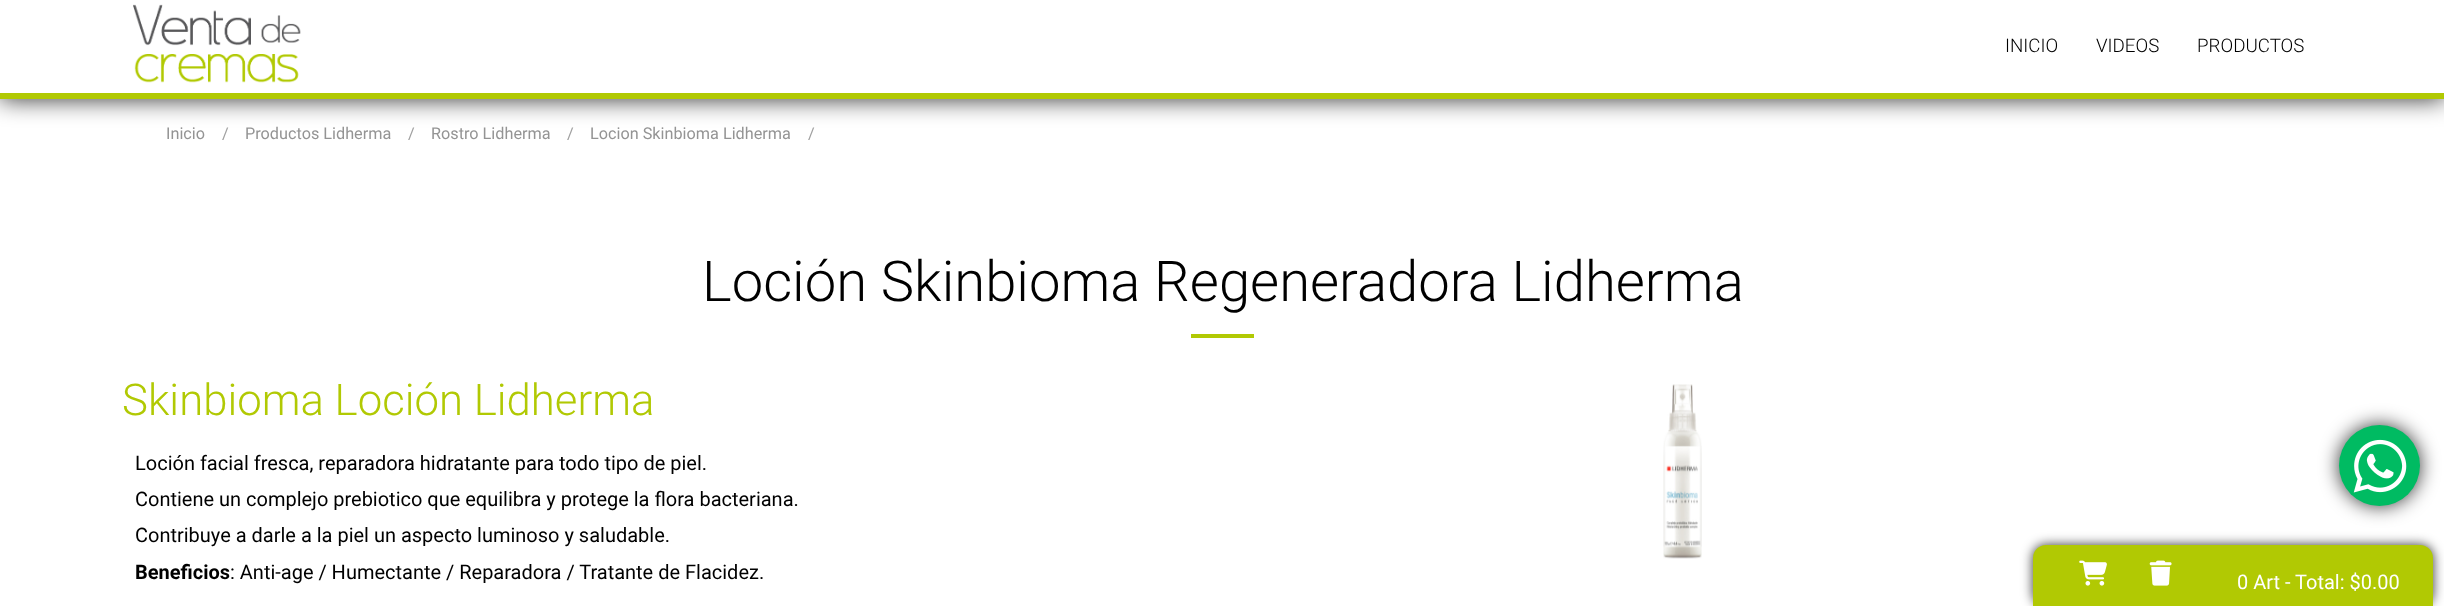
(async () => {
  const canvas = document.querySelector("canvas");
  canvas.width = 2444;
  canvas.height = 606;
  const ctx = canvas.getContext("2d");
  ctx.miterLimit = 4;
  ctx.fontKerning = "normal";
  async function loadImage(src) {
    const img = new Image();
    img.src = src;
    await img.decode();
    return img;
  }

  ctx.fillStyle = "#ffffff";
  ctx.fillRect(0, 0, 2444, 606);
  ctx.fillStyle = "rgba(0, 0, 0, 0.82)";
  ctx.filter = "blur(12.5px)";
  ctx.beginPath();
  ctx.rect(0, 0, 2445, 99);
  ctx.fill();
  ctx.filter = "none";
  ctx.fillStyle = "#ffffff";
  ctx.fillRect(0, 0, 2444, 93);
  ctx.fillStyle = "#b1c903";
  ctx.fillRect(0, 93, 2444, 6);
  ctx.drawImage(await loadImage("img/1.png"), 133, 4, 168, 79);
  ctx.fillRect(1191, 334, 63, 4);
  ctx.drawImage(await loadImage("img/2.png"), 1663, 384, 39, 175);
  ctx.fillStyle = "rgba(0, 0, 0, 0.8)";
  ctx.filter = "blur(9.5px)";
  ctx.beginPath();
  ctx.roundRect(2339, 425, 81, 81, 40.5);
  ctx.fill();
  ctx.filter = "none";
  ctx.fillStyle = "#00bb62";
  ctx.beginPath();
  ctx.arc(2379.5, 465.5, 40.5, 0, Math.PI * 2);
  ctx.fill();
  ctx.drawImage(await loadImage("img/3.png"), 2353, 439, 54, 54);
  ctx.fillStyle = "rgba(0, 0, 0, 0.8)";
  ctx.filter = "blur(6px)";
  ctx.beginPath();
  ctx.roundRect(2033, 545, 400, 61, 13);
  ctx.fill();
  ctx.filter = "none";
  ctx.fillStyle = "#b1c903";
  ctx.beginPath();
  ctx.roundRect(2033, 545, 400, 61, [13, 13, 0, 0]);
  ctx.fill();
  ctx.drawImage(await loadImage("img/4.png"), 2079, 560, 28, 26);
  ctx.drawImage(await loadImage("img/5.png"), 2149, 560, 23, 26);
  ctx.font = "300 18.75px Roboto";
  ctx.fillStyle = "#000000";
  for (const [text, x, y] of [
    ["INICIO", 2005, 52],
    ["VIDEOS", 2096, 52],
    ["PRODUCTOS", 2197, 52],
  ]) {
    ctx.fillText(text, x, y);
  }
  ctx.font = "16.25px Roboto";
  ctx.fillStyle = "#949494";
  ctx.fillText("Inicio", 166, 139);
  ctx.fillStyle = "#a0a0a0";
  ctx.fillText("/", 222, 139);
  ctx.fillStyle = "#949494";
  ctx.fillText("Productos Lidherma", 245, 139);
  ctx.fillStyle = "#a0a0a0";
  ctx.fillText("/", 408, 139);
  ctx.fillStyle = "#949494";
  ctx.fillText("Rostro Lidherma", 431, 139);
  ctx.fillStyle = "#a0a0a0";
  ctx.fillText("/", 567, 139);
  ctx.fillStyle = "#949494";
  ctx.fillText("Locion Skinbioma Lidherma", 590, 139);
  ctx.fillStyle = "#a0a0a0";
  ctx.fillText("/", 808, 139);
  ctx.font = "300 56.25px Roboto";
  ctx.fillStyle = "#000000";
  ctx.fillText("Loción Skinbioma Regeneradora Lidherma", 702, 301);
  ctx.font = "300 43.75px Roboto";
  ctx.fillStyle = "#b1c903";
  ctx.fillText("Skinbioma Loción Lidherma", 122, 415);
  ctx.font = "20px Roboto";
  ctx.fillStyle = "#000000";
  for (const [text, x, y] of [
    ["Loción facial fresca, reparadora hidratante para todo tipo de piel.", 135, 470],
    ["Contiene un complejo prebiotico que equilibra y protege la flora bacteriana.", 135, 506],
    ["Contribuye a darle a la piel un aspecto luminoso y saludable.", 135, 542],
  ]) {
    ctx.fillText(text, x, y);
  }
  ctx.font = "bold 20px Roboto";
  ctx.fillText("Beneficios", 135, 579);
  ctx.font = "20px Roboto";
  ctx.fillText(": Anti-age / Humectante / Reparadora / Tratante de Flacidez.", 230, 579);
  ctx.fillStyle = "#ffffff";
  ctx.fillText("0 Art - Total: $0.00", 2237, 589);
})();
